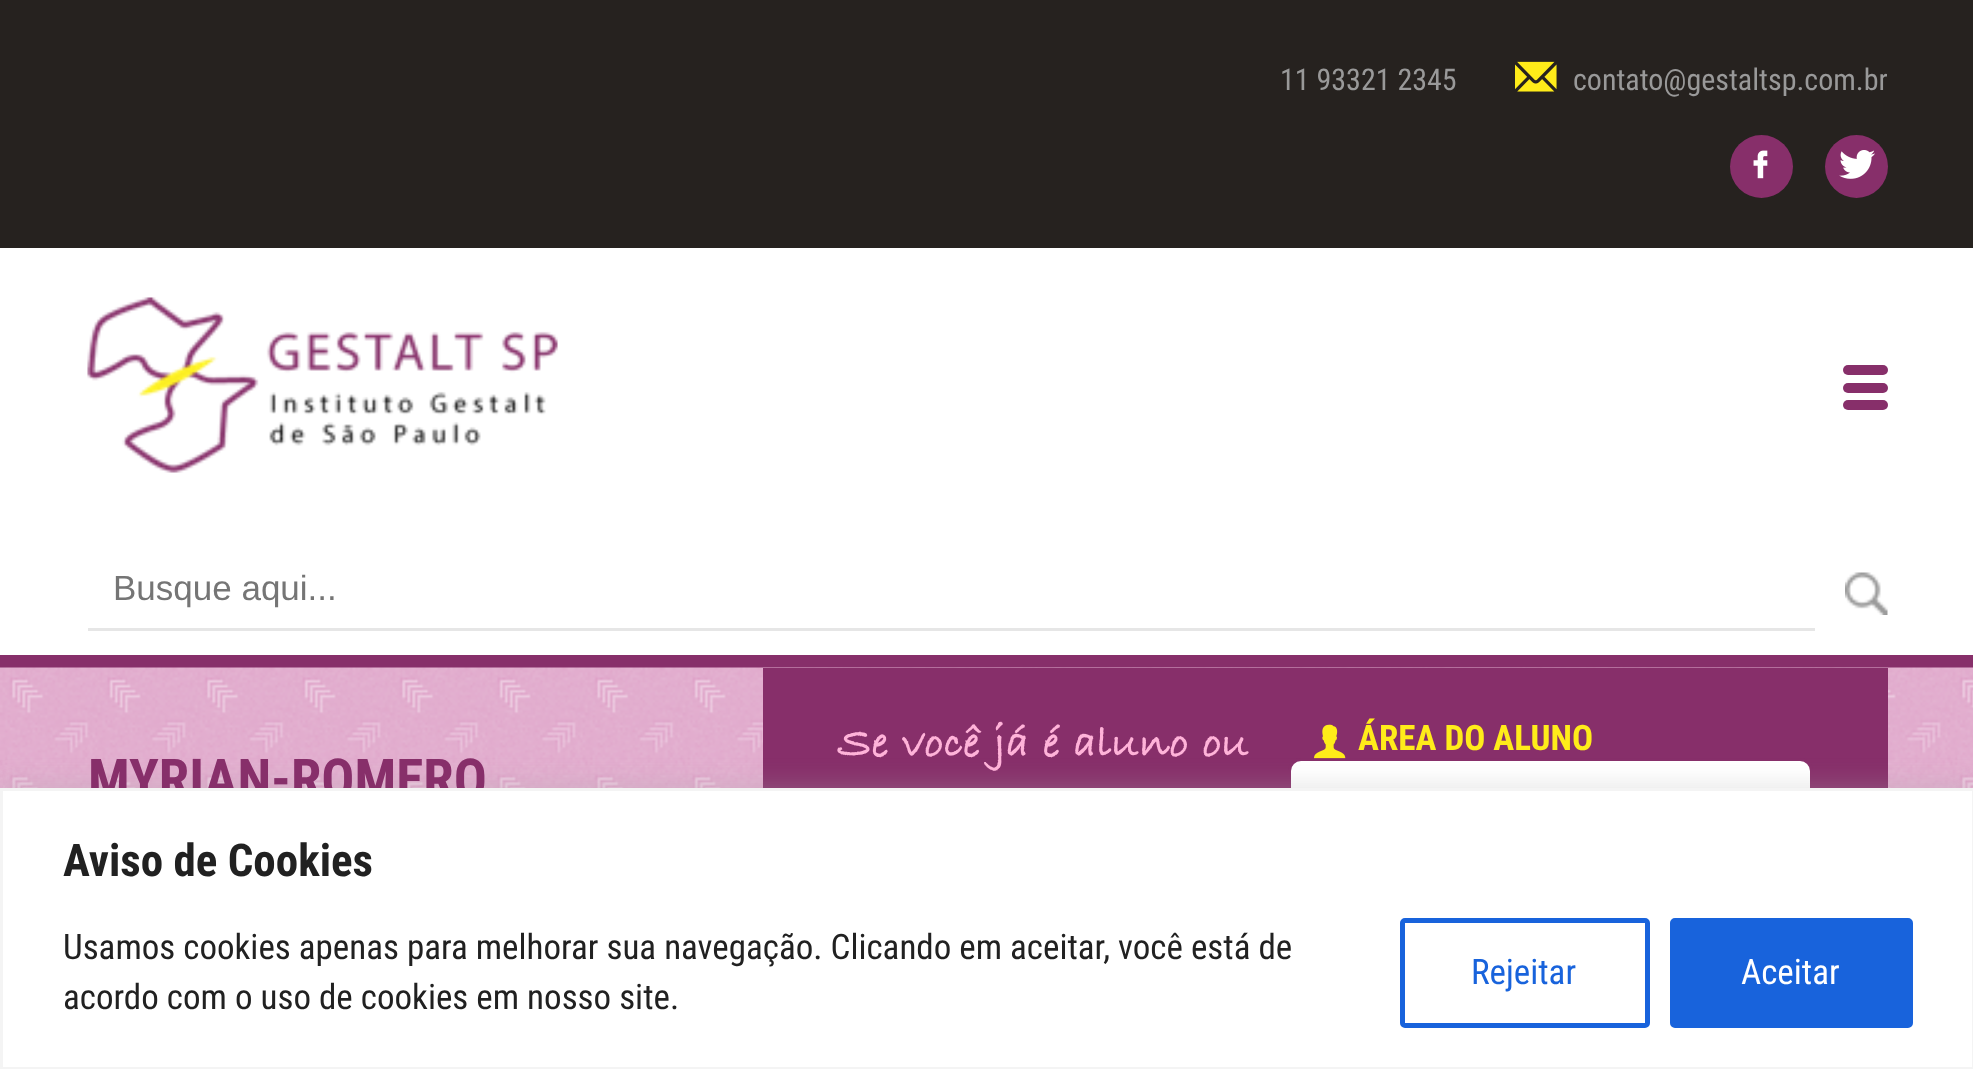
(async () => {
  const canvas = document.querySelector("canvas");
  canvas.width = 1973;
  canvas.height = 1069;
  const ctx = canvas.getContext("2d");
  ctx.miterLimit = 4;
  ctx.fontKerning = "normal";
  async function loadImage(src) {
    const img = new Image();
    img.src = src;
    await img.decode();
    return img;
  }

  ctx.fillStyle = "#ffffff";
  ctx.fillRect(0, 0, 1973, 1069);
  ctx.fillStyle = "#26221f";
  ctx.fillRect(0, 0, 1973, 248);
  ctx.drawImage(await loadImage("img/1.png"), 1515, 61, 42, 31);
  ctx.fillStyle = "#872f6a";
  ctx.beginPath();
  ctx.arc(1761.5, 166.5, 31.5, 0, Math.PI * 2);
  ctx.fill();
  ctx.drawImage(await loadImage("img/2.png"), 1753, 150, 15, 29);
  ctx.beginPath();
  ctx.arc(1856.5, 166.5, 31.5, 0, Math.PI * 2);
  ctx.fill();
  ctx.drawImage(await loadImage("img/3.png"), 1839, 150, 36, 29);
  ctx.fillRect(0, 655, 1973, 13);
  ctx.drawImage(await loadImage("img/4.png"), 87, 297, 471, 176);
  ctx.beginPath();
  ctx.roundRect(1843, 383, 45, 10, 5);
  ctx.fill();
  ctx.beginPath();
  ctx.roundRect(1843, 365, 45, 10, 5);
  ctx.fill();
  ctx.beginPath();
  ctx.roundRect(1843, 400, 45, 10, 5);
  ctx.fill();
  ctx.fillStyle = "#e6e6e6";
  ctx.fillRect(88, 628, 1727, 3);
  ctx.drawImage(await loadImage("img/5.png"), 1845, 572, 43, 43);
  ctx.drawImage(await loadImage("img/6.png"), 0, 667, 1973, 121);
  ctx.fillStyle = "#872f6a";
  ctx.fillRect(763, 668, 1125, 120);
  ctx.fillStyle = "#ffffff";
  ctx.beginPath();
  ctx.roundRect(1289.5, 759.5, 522, 79, 11.5);
  ctx.fill();
  ctx.strokeStyle = "#872f6a";
  ctx.lineWidth = 3;
  ctx.stroke();
  ctx.drawImage(await loadImage("img/7.png"), 1314, 724, 32, 35);
  ctx.fillStyle = "rgba(172, 171, 171, 0.3)";
  ctx.filter = "blur(12.5px)";
  ctx.beginPath();
  ctx.rect(0, 785, 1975, 283);
  ctx.fill();
  ctx.filter = "none";
  ctx.font = "30px Roboto Condensed";
  ctx.fillStyle = "#999999";
  ctx.fillText("11 93321 2345", 1280, 90);
  ctx.fillText("contato@gestaltsp.com.br", 1573, 90);
  ctx.font = "35px Liberation Sans";
  ctx.fillStyle = "#757575";
  ctx.fillText("Busque aqui...", 113, 600);
  ctx.wordSpacing = "2.25px";
  ctx.font = "bold 45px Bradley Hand";
  ctx.fillStyle = "#ffb3d9";
  ctx.fillText("Se você já é aluno ou", 838, 755);
  ctx.wordSpacing = "0px";
  ctx.font = "bold 35px Roboto Condensed";
  ctx.fillStyle = "#ffec1a";
  ctx.fillText("ÁREA DO ALUNO", 1358, 750);
  ctx.font = "bold 55px Roboto Condensed";
  ctx.fillStyle = "#872f6a";
  ctx.fillText("MYRIAN-ROMERO", 88, 798);
  ctx.fillStyle = "#ffffff";
  ctx.beginPath();
  ctx.rect(1.5, 789.5, 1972, 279);
  ctx.fill();
  ctx.strokeStyle = "#f4f4f4";
  ctx.stroke();
  ctx.font = "bold 45px Roboto Condensed";
  ctx.fillStyle = "#212121";
  ctx.fillText("Aviso de Cookies", 63, 876);
  ctx.font = "35px Roboto Condensed";
  ctx.fillText("Usamos cookies apenas para melhorar sua navegação. Clicando em aceitar, você está de", 63, 959);
  ctx.fillText("acordo com o uso de cookies em nosso site.", 63, 1009);
  ctx.beginPath();
  ctx.roundRect(1402.5, 920.5, 245, 105, 2.5);
  ctx.strokeStyle = "#1863dc";
  ctx.lineWidth = 5;
  ctx.stroke();
  ctx.fillStyle = "#1863dc";
  ctx.fillText("Rejeitar", 1471, 984);
  ctx.beginPath();
  ctx.roundRect(1672.5, 920.5, 238, 105, 2.5);
  ctx.fill();
  ctx.stroke();
  ctx.fillStyle = "#ffffff";
  ctx.fillText("Aceitar", 1741, 984);
})();
